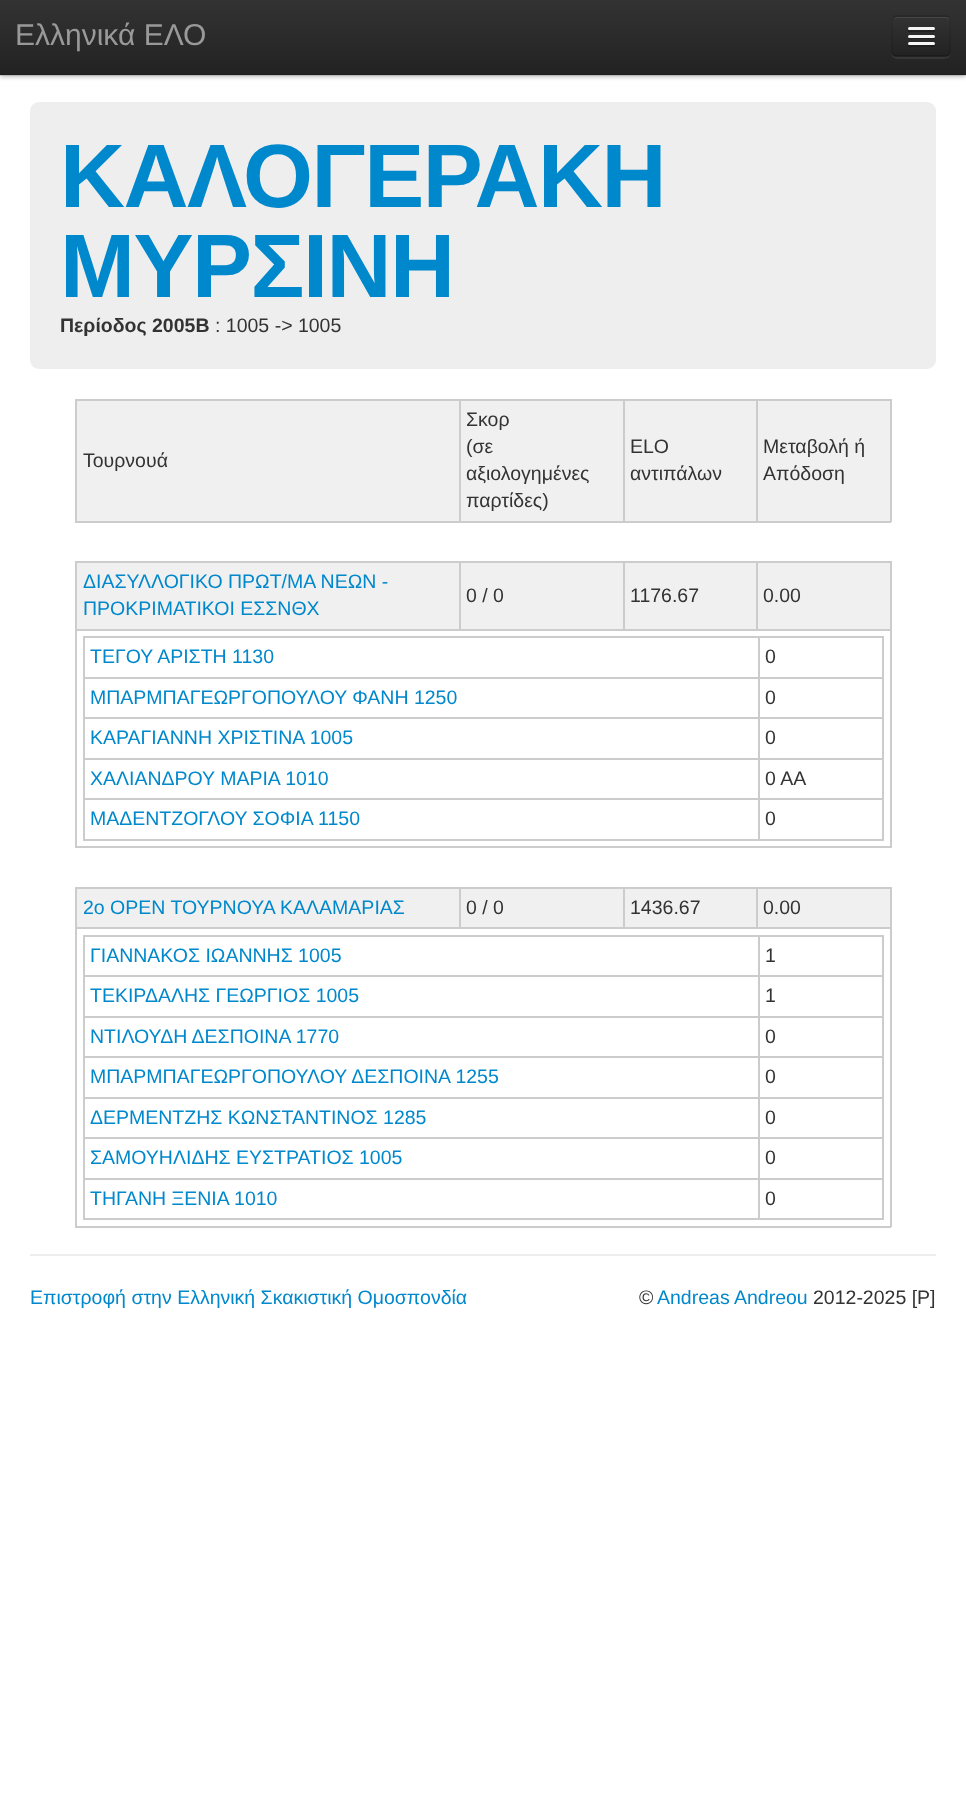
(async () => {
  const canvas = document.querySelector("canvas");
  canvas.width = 966;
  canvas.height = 1810;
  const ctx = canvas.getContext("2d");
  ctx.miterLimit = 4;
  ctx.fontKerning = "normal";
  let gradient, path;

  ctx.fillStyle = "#ffffff";
  ctx.fillRect(0, 0, 966, 1810);
  ctx.fillStyle = "rgba(0, 0, 0, 0.25)";
  ctx.filter = "blur(2px)";
  ctx.beginPath();
  ctx.rect(0, 2, 966, 75);
  ctx.fill();
  ctx.filter = "none";
  gradient = ctx.createLinearGradient(483, 0, 483, 75);
  gradient.addColorStop(0, "#333333");
  gradient.addColorStop(1, "#222222");
  ctx.fillStyle = gradient;
  ctx.fillRect(0, 0, 966, 75);
  ctx.fillStyle = "rgba(0, 0, 0, 0.1)";
  ctx.fillRect(0, 74, 966, 2);
  ctx.fillStyle = "#363636";
  path = new Path2D("M891 51C891 60 897 59 905 59H937C945 59 951 60 951 51C951 54 948 57 945 57H897C894 57 891 54 891 51Z");
  ctx.fill(path);
  ctx.fillStyle = "#2c2c2c";
  ctx.beginPath();
  ctx.roundRect(891, 15, 60, 42, 6);
  ctx.fill();
  ctx.save();
  ctx.beginPath();
  ctx.roundRect(891, 15, 60, 42, 6);
  ctx.clip();
  gradient = ctx.createLinearGradient(921, 16, 921, 56);
  gradient.addColorStop(0, "#333333");
  gradient.addColorStop(1, "#222222");
  ctx.fillStyle = gradient;
  ctx.fillRect(891, 17, 60, 39);
  ctx.restore();
  ctx.fillStyle = "#474747";
  path = new Path2D("M897 18H945C947 18 950 20 950 22C950 19 948 17 945 17H898C896 17 895 18 894 19Z");
  ctx.fill(path);
  path = new Path2D("M948.5 54.5C947.5 55.5 946.5 56 945 56H897C895.5 56 894.5 55.5 893.5 54.5");
  ctx.strokeStyle = "rgba(0, 0, 0, 0.25)";
  ctx.lineWidth = 1.5;
  ctx.stroke(path);
  path = new Path2D("M893.5 54.5C892.5 53.5 892 52.5 892 51V21C892 19.5 892.5 18.5 893.5 17.5C894.5 16.5 895.5 16 897 16H945C946.5 16 947.5 16.5 948.5 17.5C949.5 18.5 950 19.5 950 21V51C950 52.5 949.5 53.5 948.5 54.5");
  ctx.strokeStyle = "rgba(0, 0, 0, 0.1)";
  ctx.stroke(path);
  ctx.fillStyle = "#212121";
  path = new Path2D("M908 30C906.5 33 913.5 32 913.5 32H934C935 31.5 935.5 30 934.5 29L933 30C931 30.5 909 30.5 908 30Z");
  ctx.fill(path);
  ctx.fillStyle = "#f5f5f5";
  ctx.beginPath();
  ctx.roundRect(908, 27, 27, 3, 1.5);
  ctx.fill();
  ctx.fillStyle = "#1f1f1f";
  path = new Path2D("M908 37C907.5 40 913 39 913.5 39H933.5C935 39 935.5 37 934.5 36.5L933.5 37.5C932 38 908.5 37.5 908 37Z");
  ctx.fill(path);
  ctx.fillStyle = "#f5f5f5";
  ctx.beginPath();
  ctx.roundRect(908, 35, 27, 3, 1.5);
  ctx.fill();
  ctx.fillStyle = "#1d1d1d";
  path = new Path2D("M908 45C906.5 48 913.5 47 913.5 47H934C935 46.5 935.5 45 934.5 44L933 45C931 45.5 909 45.5 908 45Z");
  ctx.fill(path);
  ctx.fillStyle = "#f5f5f5";
  ctx.beginPath();
  ctx.roundRect(908, 42, 27, 3, 1.5);
  ctx.fill();
  ctx.fillStyle = "#eeeeee";
  ctx.beginPath();
  ctx.roundRect(30, 102, 906, 267, 9);
  ctx.fill();
  for (const [x, y, w, h, color] of [
    [77, 401, 813, 120, "#f0f0f0"],
    [756, 399, 135, 2, "#cccccc"],
    [890, 399, 2, 123, "#cccccc"],
    [756, 521, 135, 2, "#cccccc"],
    [756, 399, 2, 123, "#cccccc"],
    [623, 399, 135, 2, "#cccccc"],
    [623, 521, 135, 2, "#cccccc"],
    [623, 399, 2, 123, "#cccccc"],
    [459, 399, 165, 2, "#cccccc"],
    [459, 521, 165, 2, "#cccccc"],
    [459, 399, 2, 123, "#cccccc"],
    [75, 399, 386, 2, "#cccccc"],
    [75, 521, 386, 2, "#cccccc"],
    [75, 399, 2, 123, "#cccccc"],
    [77, 563, 813, 66, "#f0f0f0"],
    [756, 561, 135, 2, "#cccccc"],
    [75, 629, 816, 2, "#cccccc"],
    [756, 561, 2, 69, "#cccccc"],
    [623, 561, 135, 2, "#cccccc"],
    [623, 561, 2, 69, "#cccccc"],
    [459, 561, 165, 2, "#cccccc"],
    [459, 561, 2, 69, "#cccccc"],
    [75, 561, 386, 2, "#cccccc"],
    [890, 629, 2, 219, "#cccccc"],
    [75, 846, 816, 2, "#cccccc"],
    [75, 629, 2, 219, "#cccccc"],
    [75, 561, 2, 69, "#cccccc"],
    [890, 561, 2, 69, "#cccccc"],
    [758, 636, 126, 2, "#cccccc"],
    [758, 677, 126, 2, "#cccccc"],
    [758, 717, 126, 2, "#cccccc"],
    [758, 758, 126, 2, "#cccccc"],
    [758, 798, 126, 2, "#cccccc"],
    [882, 798, 2, 42, "#cccccc"],
    [758, 839, 126, 2, "#cccccc"],
    [758, 798, 2, 42, "#cccccc"],
    [83, 798, 676, 2, "#cccccc"],
    [758, 758, 2, 42, "#cccccc"],
    [83, 758, 676, 2, "#cccccc"],
    [758, 717, 2, 42, "#cccccc"],
    [83, 717, 676, 2, "#cccccc"],
    [758, 677, 2, 42, "#cccccc"],
    [83, 677, 676, 2, "#cccccc"],
    [758, 636, 2, 42, "#cccccc"],
    [83, 636, 676, 2, "#cccccc"],
    [83, 839, 676, 2, "#cccccc"],
    [83, 798, 2, 42, "#cccccc"],
    [83, 758, 2, 42, "#cccccc"],
    [83, 717, 2, 42, "#cccccc"],
    [83, 677, 2, 42, "#cccccc"],
    [83, 636, 2, 42, "#cccccc"],
    [882, 758, 2, 42, "#cccccc"],
    [882, 717, 2, 42, "#cccccc"],
    [882, 677, 2, 42, "#cccccc"],
    [882, 636, 2, 42, "#cccccc"],
    [77, 889, 813, 38, "#f0f0f0"],
    [756, 887, 135, 2, "#cccccc"],
    [75, 927, 816, 2, "#cccccc"],
    [756, 887, 2, 42, "#cccccc"],
    [623, 887, 135, 2, "#cccccc"],
    [623, 887, 2, 42, "#cccccc"],
    [459, 887, 165, 2, "#cccccc"],
    [459, 887, 2, 42, "#cccccc"],
    [75, 887, 386, 2, "#cccccc"],
    [890, 927, 2, 300, "#cccccc"],
    [75, 1226, 816, 2, "#cccccc"],
    [75, 927, 2, 300, "#cccccc"],
    [75, 887, 2, 42, "#cccccc"],
    [890, 887, 2, 42, "#cccccc"],
    [758, 935, 126, 2, "#cccccc"],
    [758, 975, 126, 2, "#cccccc"],
    [758, 1016, 126, 2, "#cccccc"],
    [758, 1056, 126, 2, "#cccccc"],
    [758, 1097, 126, 2, "#cccccc"],
    [758, 1137, 126, 2, "#cccccc"],
    [758, 1178, 126, 2, "#cccccc"],
    [882, 1178, 2, 42, "#cccccc"],
    [758, 1218, 126, 2, "#cccccc"],
    [758, 1178, 2, 42, "#cccccc"],
    [83, 1178, 676, 2, "#cccccc"],
    [758, 1137, 2, 42, "#cccccc"],
    [83, 1137, 676, 2, "#cccccc"],
    [758, 1097, 2, 42, "#cccccc"],
    [83, 1097, 676, 2, "#cccccc"],
    [758, 1056, 2, 42, "#cccccc"],
    [83, 1056, 676, 2, "#cccccc"],
    [758, 1016, 2, 42, "#cccccc"],
    [83, 1016, 676, 2, "#cccccc"],
    [758, 975, 2, 42, "#cccccc"],
    [83, 975, 676, 2, "#cccccc"],
    [758, 935, 2, 42, "#cccccc"],
    [83, 935, 676, 2, "#cccccc"],
    [83, 1218, 676, 2, "#cccccc"],
    [83, 1178, 2, 42, "#cccccc"],
    [83, 1137, 2, 42, "#cccccc"],
    [83, 1097, 2, 42, "#cccccc"],
    [83, 1056, 2, 42, "#cccccc"],
    [83, 1016, 2, 42, "#cccccc"],
    [83, 975, 2, 42, "#cccccc"],
    [83, 935, 2, 42, "#cccccc"],
    [882, 1137, 2, 42, "#cccccc"],
    [882, 1097, 2, 42, "#cccccc"],
    [882, 1056, 2, 42, "#cccccc"],
    [882, 1016, 2, 42, "#cccccc"],
    [882, 975, 2, 42, "#cccccc"],
    [882, 935, 2, 42, "#cccccc"],
    [30, 1254, 906, 2, "#eeeeee"],
  ]) {
    ctx.fillStyle = color;
    ctx.fillRect(x, y, w, h);
  }
  ctx.font = "30px Liberation Sans";
  ctx.fillStyle = "#999999";
  ctx.fillText("Ελληνικά ΕΛΟ", 15, 45);
  ctx.letterSpacing = "-1.5px";
  ctx.font = "bold 90px Liberation Sans";
  ctx.fillStyle = "#0088cc";
  ctx.fillText("ΚΑΛΟΓΕΡΑΚΗ", 60, 207);
  ctx.fillText("ΜΥΡΣΙΝΗ", 60, 297);
  ctx.letterSpacing = "0px";
  ctx.font = "bold 19.5px Liberation Sans";
  ctx.fillStyle = "#333333";
  ctx.fillText("Περίοδος 2005B", 60, 332);
  ctx.font = "19.5px Liberation Sans";
  for (const [text, x, y] of [
    [": 1005 -> 1005", 215, 332],
    ["Τουρνουά", 83, 467],
    ["Σκορ", 466, 426],
    ["(σε", 466, 453],
    ["αξιολογημένες", 466, 480],
    ["παρτίδες)", 466, 507],
    ["ELO", 630, 453],
    ["αντιπάλων", 630, 480],
    ["Μεταβολή ή", 763, 453],
    ["Απόδοση", 763, 480],
  ]) {
    ctx.fillText(text, x, y);
  }
  ctx.fillStyle = "#0088cc";
  ctx.fillText("ΔΙΑΣΥΛΛΟΓΙΚΟ ΠΡΩΤ/ΜΑ ΝΕΩΝ -", 83, 588);
  ctx.fillText("ΠΡΟΚΡΙΜΑΤΙΚΟΙ ΕΣΣΝΘΧ", 83, 615);
  ctx.fillStyle = "#333333";
  for (const [text, x, y] of [
    ["0 / 0", 466, 602],
    ["1176.67", 630, 602],
    ["0.00", 763, 602],
  ]) {
    ctx.fillText(text, x, y);
  }
  ctx.fillStyle = "#0088cc";
  ctx.fillText("ΤΕΓΟΥ ΑΡΙΣΤΗ 1130", 90, 663);
  ctx.fillStyle = "#333333";
  ctx.fillText("0", 765, 663);
  ctx.fillStyle = "#0088cc";
  ctx.fillText("ΜΠΑΡΜΠΑΓΕΩΡΓΟΠΟΥΛΟΥ ΦΑΝΗ 1250", 90, 704);
  ctx.fillStyle = "#333333";
  ctx.fillText("0", 765, 704);
  ctx.fillStyle = "#0088cc";
  ctx.fillText("ΚΑΡΑΓΙΑΝΝΗ ΧΡΙΣΤΙΝΑ 1005", 90, 744);
  ctx.fillStyle = "#333333";
  ctx.fillText("0", 765, 744);
  ctx.fillStyle = "#0088cc";
  ctx.fillText("ΧΑΛΙΑΝΔΡΟΥ ΜΑΡΙΑ 1010", 90, 785);
  ctx.fillStyle = "#333333";
  ctx.fillText("0 ΑΑ", 765, 785);
  ctx.fillStyle = "#0088cc";
  ctx.fillText("ΜΑΔΕΝΤΖΟΓΛΟΥ ΣΟΦΙΑ 1150", 90, 825);
  ctx.fillStyle = "#333333";
  ctx.fillText("0", 765, 825);
  ctx.fillStyle = "#0088cc";
  ctx.fillText("2ο ΟΡΕΝ ΤΟΥΡΝΟΥΑ ΚΑΛΑΜΑΡΙΑΣ", 83, 914);
  ctx.fillStyle = "#333333";
  for (const [text, x, y] of [
    ["0 / 0", 466, 914],
    ["1436.67", 630, 914],
    ["0.00", 763, 914],
  ]) {
    ctx.fillText(text, x, y);
  }
  ctx.fillStyle = "#0088cc";
  ctx.fillText("ΓΙΑΝΝΑΚΟΣ ΙΩΑΝΝΗΣ 1005", 90, 962);
  ctx.fillStyle = "#333333";
  ctx.fillText("1", 765, 962);
  ctx.fillStyle = "#0088cc";
  ctx.fillText("ΤΕΚΙΡΔΑΛΗΣ ΓΕΩΡΓΙΟΣ 1005", 90, 1002);
  ctx.fillStyle = "#333333";
  ctx.fillText("1", 765, 1002);
  ctx.fillStyle = "#0088cc";
  ctx.fillText("ΝΤΙΛΟΥΔΗ ΔΕΣΠΟΙΝΑ 1770", 90, 1043);
  ctx.fillStyle = "#333333";
  ctx.fillText("0", 765, 1043);
  ctx.fillStyle = "#0088cc";
  ctx.fillText("ΜΠΑΡΜΠΑΓΕΩΡΓΟΠΟΥΛΟΥ ΔΕΣΠΟΙΝΑ 1255", 90, 1083);
  ctx.fillStyle = "#333333";
  ctx.fillText("0", 765, 1083);
  ctx.fillStyle = "#0088cc";
  ctx.fillText("ΔΕΡΜΕΝΤΖΗΣ ΚΩΝΣΤΑΝΤΙΝΟΣ 1285", 90, 1124);
  ctx.fillStyle = "#333333";
  ctx.fillText("0", 765, 1124);
  ctx.fillStyle = "#0088cc";
  ctx.fillText("ΣΑΜΟΥΗΛΙΔΗΣ ΕΥΣΤΡΑΤΙΟΣ 1005", 90, 1164);
  ctx.fillStyle = "#333333";
  ctx.fillText("0", 765, 1164);
  ctx.fillStyle = "#0088cc";
  ctx.fillText("ΤΗΓΑΝΗ ΞΕΝΙΑ 1010", 90, 1205);
  ctx.fillStyle = "#333333";
  ctx.fillText("0", 765, 1205);
  ctx.fillStyle = "#0088cc";
  ctx.fillText("Επιστροφή στην Ελληνική Σκακιστική Ομοσπονδία", 30, 1304);
  ctx.fillStyle = "#333333";
  ctx.fillText("©", 639, 1304);
  ctx.fillStyle = "#0088cc";
  ctx.fillText("Andreas Andreou", 657, 1304);
  ctx.fillStyle = "#333333";
  ctx.fillText("2012-2025 [P]", 813, 1304);
})();
